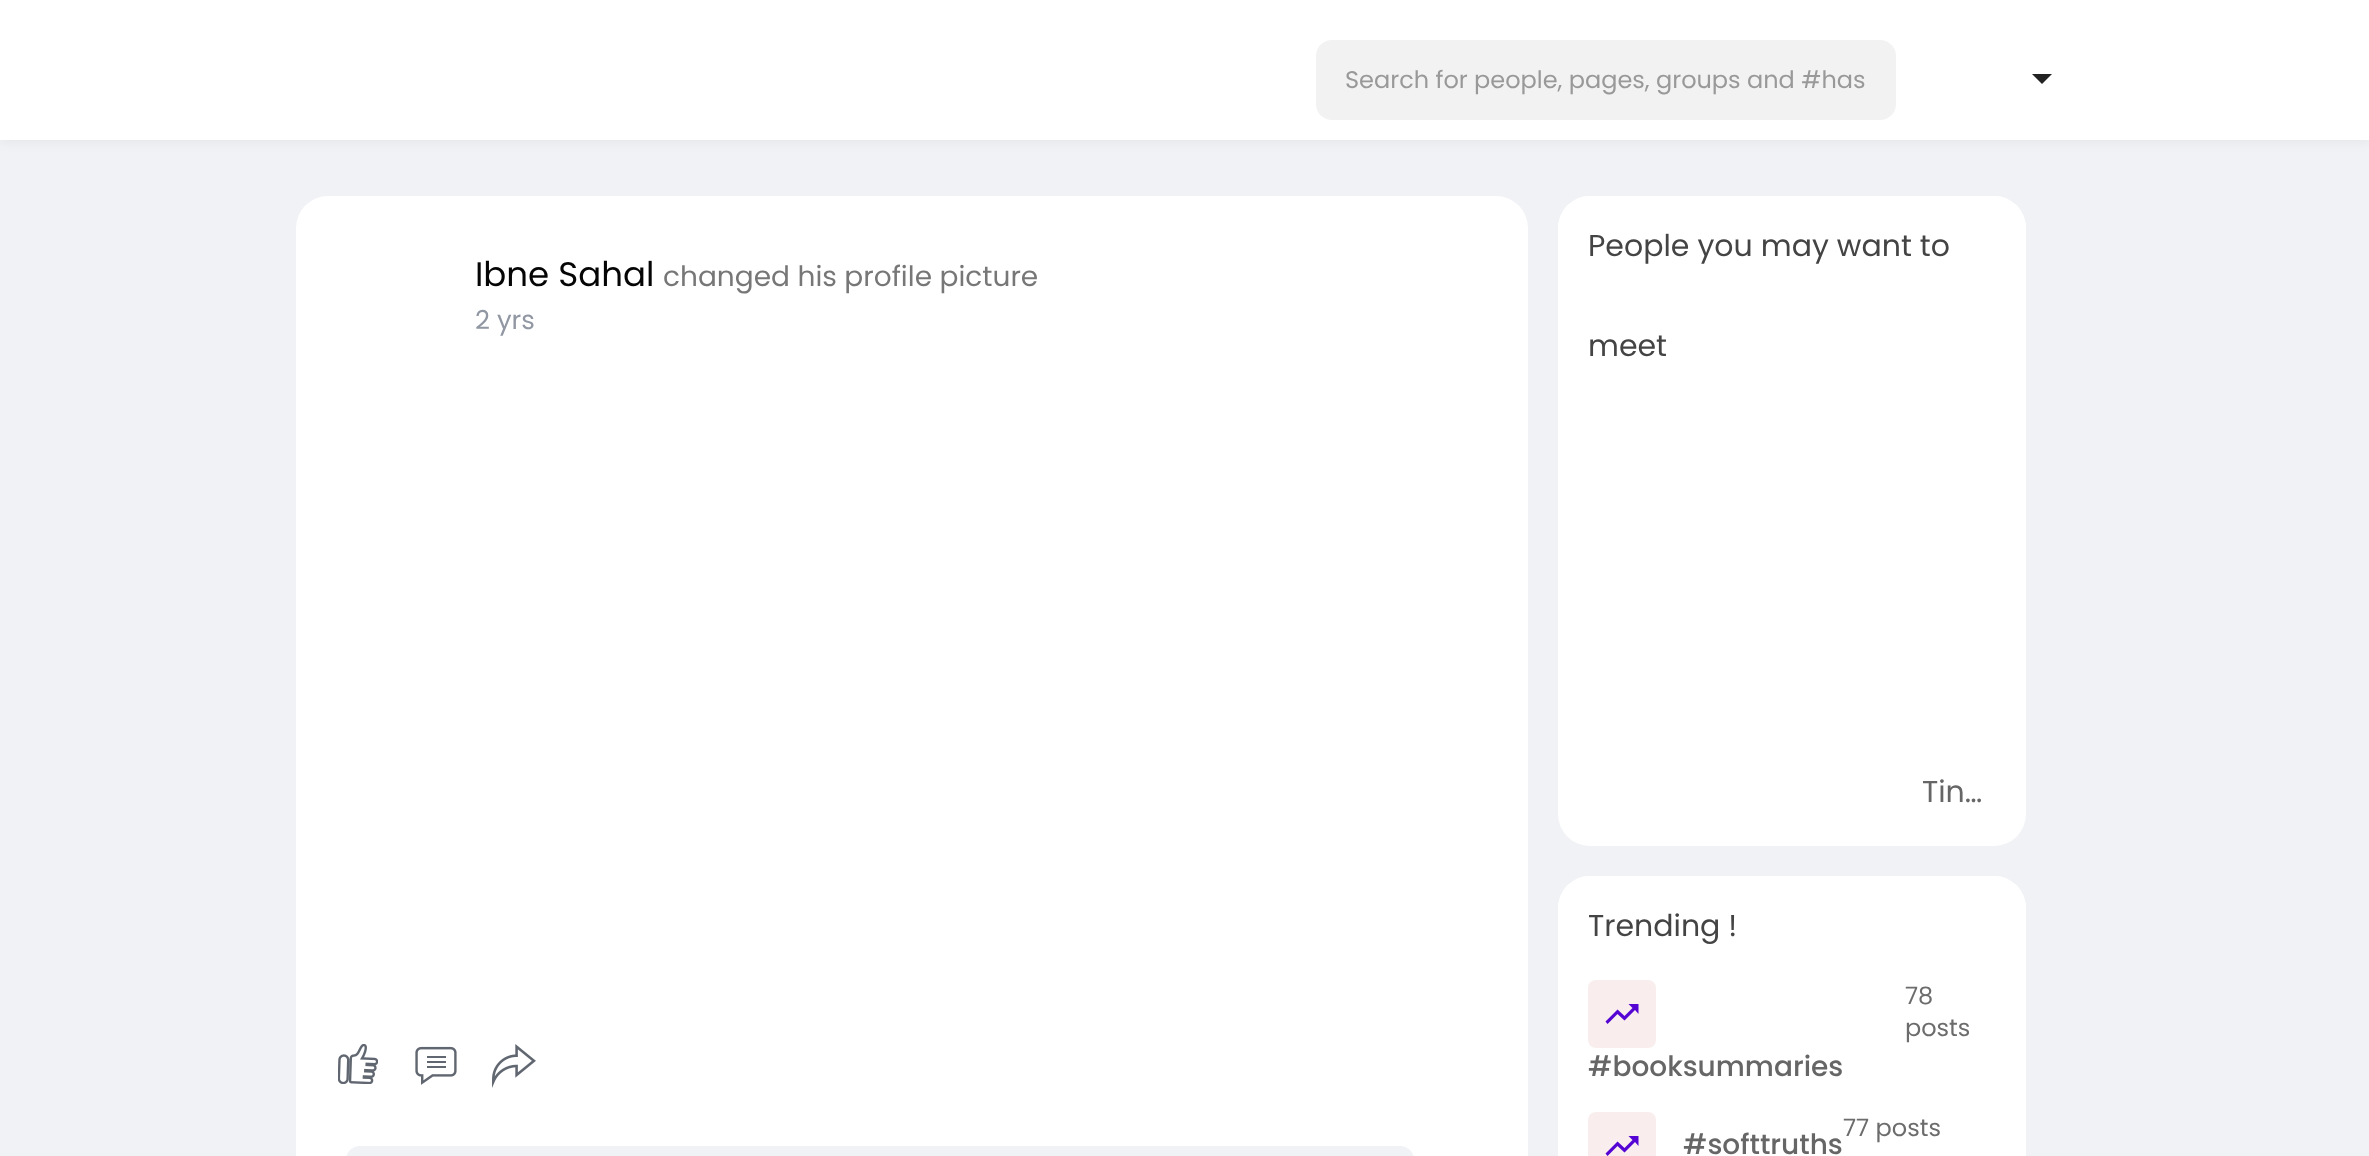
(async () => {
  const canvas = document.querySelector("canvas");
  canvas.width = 2369;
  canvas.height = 1156;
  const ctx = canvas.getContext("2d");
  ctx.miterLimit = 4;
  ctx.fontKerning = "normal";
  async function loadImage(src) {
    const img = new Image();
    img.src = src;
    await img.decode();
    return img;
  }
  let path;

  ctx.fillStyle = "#f0f2f5";
  ctx.fillRect(0, 0, 2369, 1156);
  ctx.fillStyle = "rgba(0, 0, 0, 0.05)";
  ctx.filter = "blur(6px)";
  ctx.beginPath();
  ctx.rect(0, 2, 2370, 140);
  ctx.fill();
  ctx.filter = "none";
  ctx.fillStyle = "#ffffff";
  ctx.fillRect(0, 0, 2369, 140);
  ctx.fillStyle = "#f2f2f2";
  ctx.beginPath();
  ctx.roundRect(1316, 40, 580, 80, 16);
  ctx.fill();
  ctx.fillStyle = "#222222";
  path = new Path2D("M2032 74H2052L2042 84Z");
  ctx.fill(path);
  ctx.fillStyle = "#ffffff";
  ctx.beginPath();
  ctx.roundRect(296, 196, 1232, 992, 32);
  ctx.fill();
  ctx.drawImage(await loadImage("img/1.png"), 338, 1044, 40, 40);
  ctx.drawImage(await loadImage("img/2.png"), 415, 1046, 42, 39);
  ctx.drawImage(await loadImage("img/3.png"), 492, 1044, 44, 44);
  ctx.fillStyle = "#f0f2f5";
  ctx.beginPath();
  ctx.roundRect(346, 1146, 1068, 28, 18);
  ctx.fill();
  ctx.fillStyle = "#ffffff";
  ctx.beginPath();
  ctx.roundRect(1558, 196, 468, 650, 32);
  ctx.fill();
  ctx.beginPath();
  ctx.roundRect(1558, 196, 468, 200, [32, 32, 0, 0]);
  ctx.fill();
  ctx.beginPath();
  ctx.roundRect(1558, 876, 468, 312, 32);
  ctx.fill();
  ctx.beginPath();
  ctx.roundRect(1558, 876, 468, 100, [32, 32, 0, 0]);
  ctx.fill();
  ctx.fillStyle = "#f9edee";
  ctx.beginPath();
  ctx.roundRect(1588, 980, 68, 68, 8);
  ctx.fill();
  ctx.fillStyle = "#5404d3";
  path = new Path2D("M1628.5 1004L1632.5 1008L1624.5 1016L1617.5 1009.5L1605.5 1021.5L1607.5 1024L1617.5 1014L1624.5 1020.5L1635 1010L1638.5 1014V1004Z");
  ctx.fill(path);
  ctx.fillStyle = "#f9edee";
  ctx.beginPath();
  ctx.roundRect(1588, 1112, 68, 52, 8);
  ctx.fill();
  ctx.fillStyle = "#5404d3";
  path = new Path2D("M1628.5 1136L1632.5 1140L1624.5 1148L1617.5 1141.5L1605.5 1153.5L1607.5 1156L1617.5 1146L1624.5 1152.5L1635 1142L1638.5 1146V1136Z");
  ctx.fill(path);
  ctx.font = "24px Poppins";
  ctx.fillStyle = "#999999";
  ctx.fillText("Search for people, pages, groups and #has", 1345, 88);
  ctx.font = "34px Poppins";
  ctx.fillStyle = "#050505";
  ctx.fillText("Ibne Sahal", 475, 286);
  ctx.font = "28px Poppins";
  ctx.fillStyle = "#777777";
  ctx.fillText("changed his profile picture", 663, 286);
  ctx.font = "26px Poppins";
  ctx.fillStyle = "#9197a3";
  ctx.fillText("2 yrs", 475, 329);
  ctx.font = "30px Poppins";
  ctx.fillStyle = "#444444";
  ctx.fillText("People you may want to", 1588, 256);
  ctx.fillText("meet", 1588, 356);
  ctx.fillStyle = "#666666";
  ctx.fillText("Tin…", 1922, 802);
  ctx.fillStyle = "#444444";
  ctx.fillText("Trending !", 1588, 936);
  ctx.font = "24px Poppins";
  ctx.fillStyle = "#6c6c6c";
  ctx.fillText("78", 1905, 1004);
  ctx.fillText("posts", 1905, 1036);
  ctx.font = "500 28px Poppins";
  ctx.fillStyle = "#666666";
  ctx.fillText("#booksummaries", 1588, 1076);
  ctx.fillText("#softtruths", 1683, 1154);
  ctx.font = "24px Poppins";
  ctx.fillStyle = "#6c6c6c";
  ctx.fillText("77 posts", 1843, 1136);
})();
